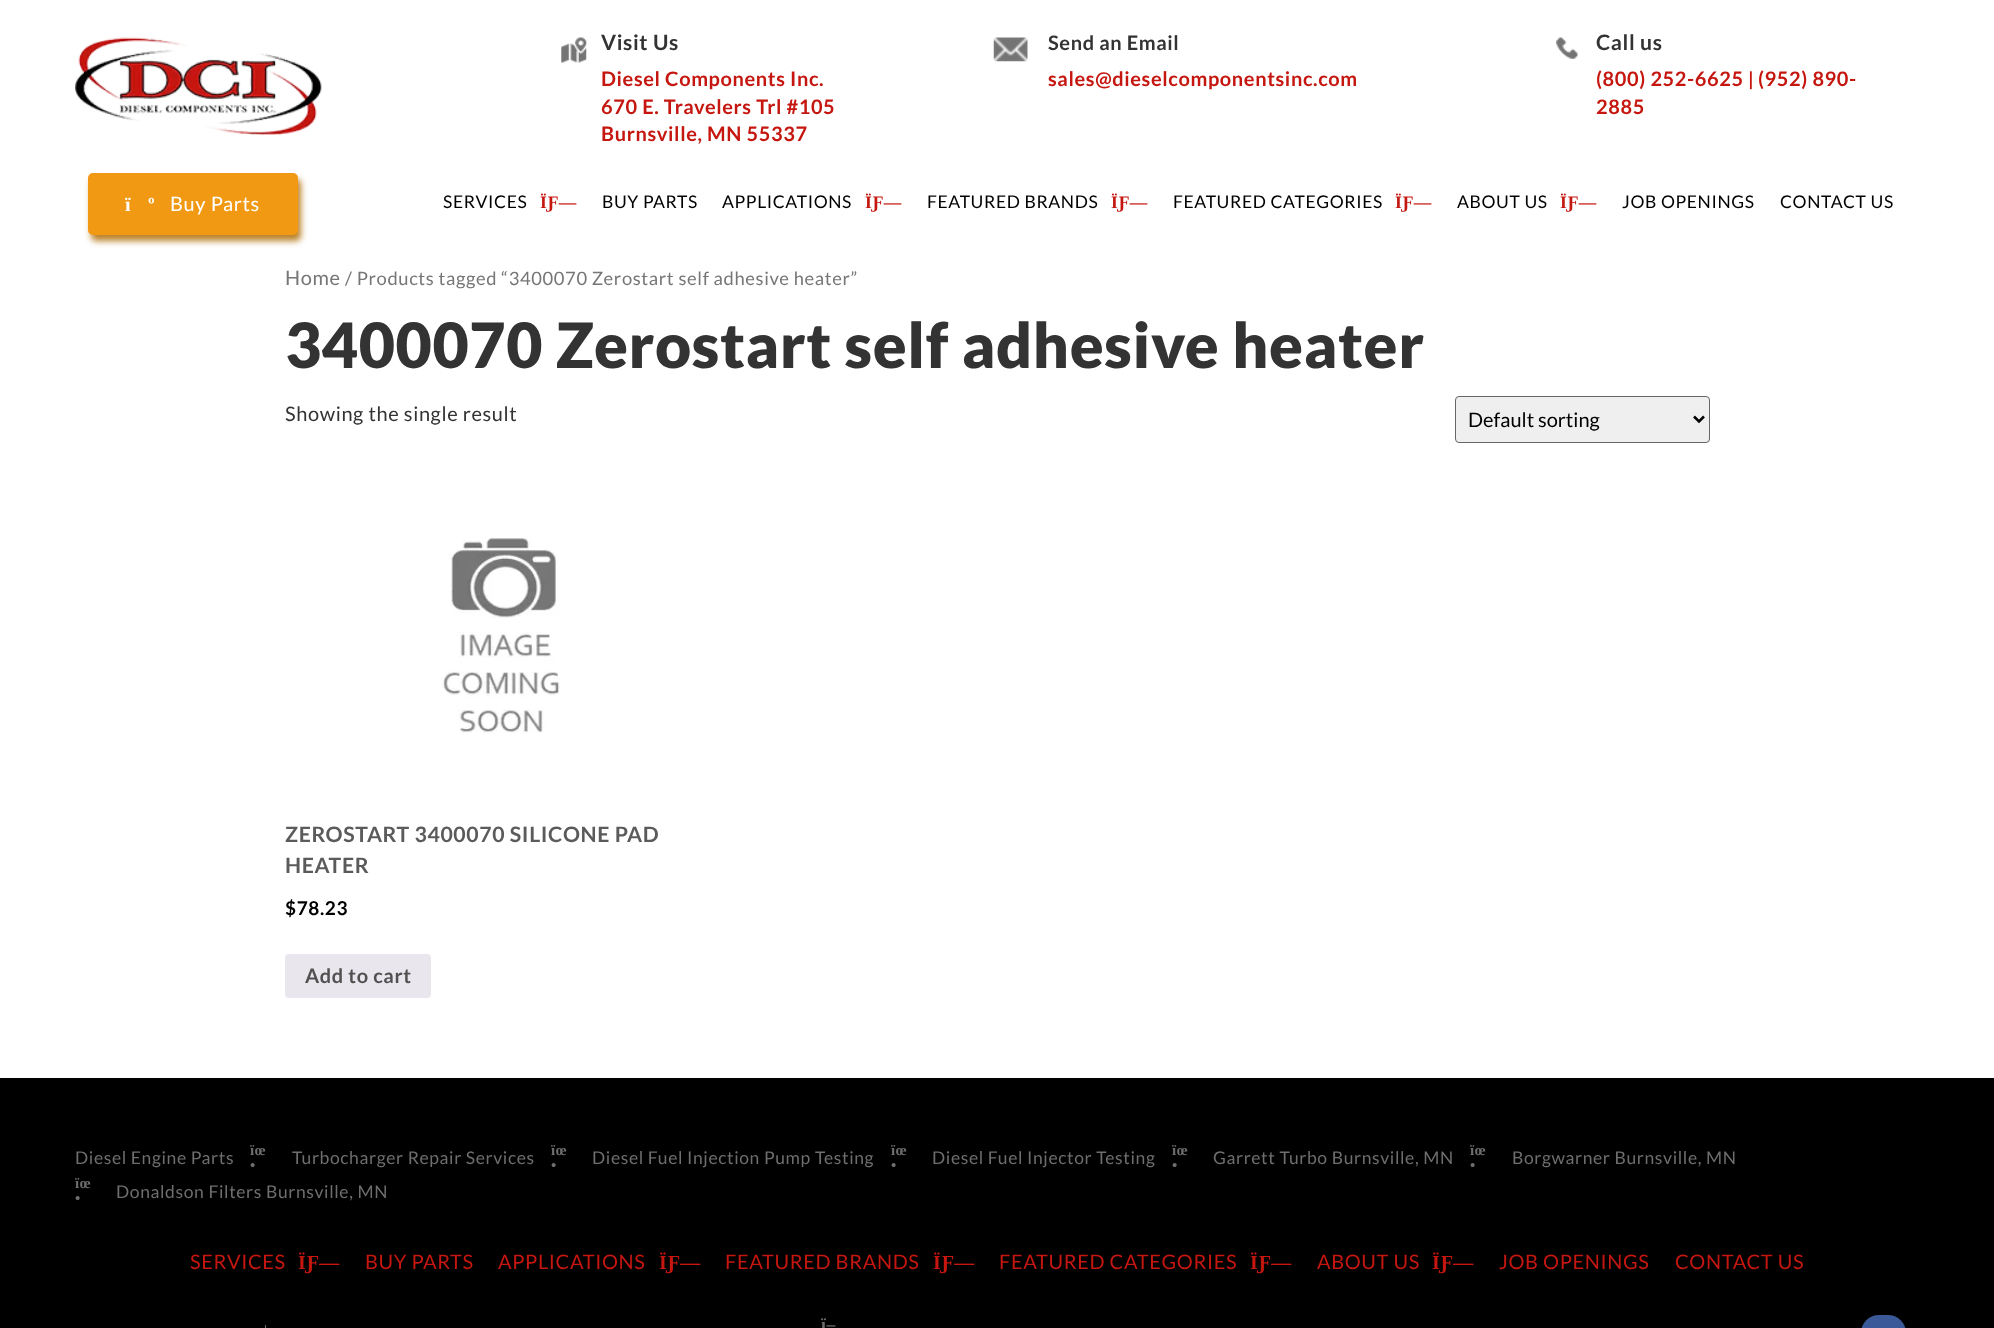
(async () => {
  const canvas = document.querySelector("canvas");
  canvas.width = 1994;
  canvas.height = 1328;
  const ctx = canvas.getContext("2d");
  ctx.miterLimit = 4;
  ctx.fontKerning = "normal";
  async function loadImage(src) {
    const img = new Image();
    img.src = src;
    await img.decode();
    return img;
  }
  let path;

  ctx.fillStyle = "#ffffff";
  ctx.fillRect(0, 0, 1994, 1328);
  ctx.drawImage(await loadImage("img/1.png"), 75, 37, 247, 98);
  ctx.drawImage(await loadImage("img/2.png"), 561, 37, 26, 26);
  ctx.drawImage(await loadImage("img/3.png"), 993, 37, 35, 25);
  ctx.drawImage(await loadImage("img/4.png"), 1556, 37, 22, 22);
  ctx.fillStyle = "rgba(186, 127, 38, 0.98)";
  ctx.filter = "blur(3px)";
  ctx.beginPath();
  ctx.roundRect(91, 179, 210, 62, 5);
  ctx.fill();
  ctx.filter = "none";
  ctx.fillStyle = "#f19913";
  ctx.beginPath();
  ctx.roundRect(88, 173, 210, 62, 5);
  ctx.fill();
  ctx.fillStyle = "#efefef";
  ctx.beginPath();
  ctx.roundRect(1455.5, 396.5, 254, 46, 3.5);
  ctx.fill();
  ctx.strokeStyle = "#666666";
  ctx.stroke();
  path = new Path2D("M1694 416.5L1699 421.5L1704 416.5");
  ctx.strokeStyle = "#000000";
  ctx.lineWidth = 2.5;
  ctx.stroke(path);
  ctx.drawImage(await loadImage("img/5.png"), 441, 538, 119, 195);
  ctx.fillStyle = "#e9e6ed";
  ctx.beginPath();
  ctx.roundRect(285, 954, 146, 44, 4);
  ctx.fill();
  ctx.fillStyle = "#000000";
  ctx.fillRect(0, 1078, 1994, 250);
  ctx.fillStyle = "#6e6e6e";
  ctx.fillRect(265, 1325, 1, 3);
  ctx.fillStyle = "#3b5998";
  ctx.beginPath();
  ctx.roundRect(1861, 1315, 45, 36, 22.5);
  ctx.fill();
  ctx.letterSpacing = "0.62px";
  ctx.font = "bold 21.25px Lato";
  ctx.fillStyle = "#333333";
  ctx.fillText("Visit Us", 601, 50);
  ctx.font = "bold 20px Lato";
  ctx.fillStyle = "#c51710";
  for (const [text, x, y] of [
    ["Diesel Components Inc.", 601, 86],
    ["670 E. Travelers Trl #105", 601, 114],
    ["Burnsville, MN 55337", 601, 141],
  ]) {
    ctx.fillText(text, x, y);
  }
  ctx.fillStyle = "#333333";
  ctx.fillText("Send an Email", 1048, 50);
  ctx.fillStyle = "#c51710";
  ctx.fillText("sales@dieselcomponentsinc.com", 1048, 86);
  ctx.font = "bold 21.25px Lato";
  ctx.fillStyle = "#333333";
  ctx.fillText("Call us", 1596, 50);
  ctx.font = "bold 20px Lato";
  ctx.fillStyle = "#c51710";
  ctx.fillText("(800) 252-6625", 1596, 86);
  ctx.font = "bold 19px Lato";
  ctx.fillText("|", 1748, 86);
  ctx.font = "bold 20px Lato";
  ctx.fillText("(952) 890-", 1758, 86);
  ctx.fillText("2885", 1596, 114);
  ctx.font = "bold 20px Liberation Serif";
  ctx.fillStyle = "#ffffff";
  ctx.fillText("ï", 125, 211);
  ctx.fillText("º", 148, 211);
  ctx.font = "20px Lato";
  ctx.fillText("Buy Parts", 170, 211);
  ctx.font = "17.5px Lato";
  ctx.fillStyle = "#000000";
  ctx.fillText("SERVICES", 443, 208);
  ctx.font = "bold 17.5px Liberation Serif";
  ctx.fillStyle = "#c51710";
  ctx.fillText("ÏƑ—", 540, 208);
  ctx.font = "17.5px Lato";
  ctx.fillStyle = "#000000";
  ctx.fillText("BUY PARTS", 602, 208);
  ctx.fillText("APPLICATIONS", 722, 208);
  ctx.font = "bold 17.5px Liberation Serif";
  ctx.fillStyle = "#c51710";
  ctx.fillText("ÏƑ—", 865, 208);
  ctx.font = "17.5px Lato";
  ctx.fillStyle = "#000000";
  ctx.fillText("FEATURED BRANDS", 927, 208);
  ctx.font = "bold 17.5px Liberation Serif";
  ctx.fillStyle = "#c51710";
  ctx.fillText("ÏƑ—", 1111, 208);
  ctx.font = "17.5px Lato";
  ctx.fillStyle = "#000000";
  ctx.fillText("FEATURED CATEGORIES", 1173, 208);
  ctx.font = "bold 17.5px Liberation Serif";
  ctx.fillStyle = "#c51710";
  ctx.fillText("ÏƑ—", 1395, 208);
  ctx.font = "17.5px Lato";
  ctx.fillStyle = "#000000";
  ctx.fillText("ABOUT US", 1457, 208);
  ctx.font = "bold 17.5px Liberation Serif";
  ctx.fillStyle = "#c51710";
  ctx.fillText("ÏƑ—", 1560, 208);
  ctx.font = "17.5px Lato";
  ctx.fillStyle = "#000000";
  ctx.fillText("JOB OPENINGS", 1622, 208);
  ctx.fillText("CONTACT US", 1780, 208);
  ctx.font = "20px Lato";
  ctx.fillStyle = "#767676";
  ctx.fillText("Home", 285, 285);
  ctx.font = "18.4px Lato";
  ctx.fillText("/ Products tagged “3400070 Zerostart self adhesive heater”", 345, 285);
  ctx.font = "900 62.5px Lato";
  ctx.fillStyle = "#333333";
  ctx.fillText("3400070 Zerostart self adhesive heater", 285, 368);
  ctx.font = "20px Lato";
  ctx.fillText("Showing the single result", 285, 421);
  ctx.letterSpacing = "0px";
  ctx.fillStyle = "#000000";
  ctx.fillText("Default sorting", 1468, 427);
  ctx.letterSpacing = "0.62px";
  ctx.font = "bold 21.25px Lato";
  ctx.fillStyle = "#5b5b5b";
  ctx.fillText("ZEROSTART 3400070 SILICONE PAD", 285, 842);
  ctx.fillText("HEATER", 285, 873);
  ctx.font = "bold 19px Lato";
  ctx.fillStyle = "#000000";
  ctx.fillText("$78.23", 285, 915);
  ctx.font = "bold 20px Lato";
  ctx.fillStyle = "#515151";
  ctx.fillText("Add to cart", 305, 983);
  ctx.font = "17.5px Lato";
  ctx.fillStyle = "#6e6e6e";
  ctx.fillText("Diesel Engine Parts", 75, 1164);
  ctx.font = "bold 15px Liberation Serif";
  ctx.fillText("ïœ", 250, 1155);
  ctx.fillText("•", 250, 1170);
  ctx.font = "17.5px Lato";
  ctx.fillText("Turbocharger Repair Services", 292, 1164);
  ctx.font = "bold 15px Liberation Serif";
  ctx.fillText("ïœ", 551, 1155);
  ctx.fillText("•", 551, 1170);
  ctx.font = "17.5px Lato";
  ctx.fillText("Diesel Fuel Injection Pump Testing", 592, 1164);
  ctx.font = "bold 15px Liberation Serif";
  ctx.fillText("ïœ", 891, 1155);
  ctx.fillText("•", 891, 1170);
  ctx.font = "17.5px Lato";
  ctx.fillText("Diesel Fuel Injector Testing", 932, 1164);
  ctx.font = "bold 15px Liberation Serif";
  ctx.fillText("ïœ", 1172, 1155);
  ctx.fillText("•", 1172, 1170);
  ctx.font = "17.5px Lato";
  ctx.fillText("Garrett Turbo Burnsville, MN", 1213, 1164);
  ctx.font = "bold 15px Liberation Serif";
  ctx.fillText("ïœ", 1470, 1155);
  ctx.fillText("•", 1470, 1170);
  ctx.font = "17.5px Lato";
  ctx.fillText("Borgwarner Burnsville, MN", 1512, 1164);
  ctx.font = "bold 15px Liberation Serif";
  ctx.fillText("ïœ", 75, 1188);
  ctx.fillText("•", 75, 1203);
  ctx.font = "17.5px Lato";
  ctx.fillText("Donaldson Filters Burnsville, MN", 116, 1198);
  ctx.font = "20px Lato";
  ctx.fillStyle = "#c51710";
  ctx.fillText("SERVICES", 190, 1269);
  ctx.font = "bold 20px Liberation Serif";
  ctx.fillText("ÏƑ—", 298, 1269);
  ctx.font = "20px Lato";
  ctx.fillText("BUY PARTS", 365, 1269);
  ctx.fillText("APPLICATIONS", 498, 1269);
  ctx.font = "bold 20px Liberation Serif";
  ctx.fillText("ÏƑ—", 659, 1269);
  ctx.font = "20px Lato";
  ctx.fillText("FEATURED BRANDS", 725, 1269);
  ctx.font = "bold 20px Liberation Serif";
  ctx.fillText("ÏƑ—", 933, 1269);
  ctx.font = "20px Lato";
  ctx.fillText("FEATURED CATEGORIES", 999, 1269);
  ctx.font = "bold 20px Liberation Serif";
  ctx.fillText("ÏƑ—", 1250, 1269);
  ctx.font = "20px Lato";
  ctx.fillText("ABOUT US", 1317, 1269);
  ctx.font = "bold 20px Liberation Serif";
  ctx.fillText("ÏƑ—", 1432, 1269);
  ctx.font = "20px Lato";
  ctx.fillText("JOB OPENINGS", 1499, 1269);
  ctx.fillText("CONTACT US", 1675, 1269);
  ctx.font = "bold 17.5px Liberation Serif";
  ctx.fillStyle = "#6e6e6e";
  ctx.fillText("ï–", 821, 1330);
})();
